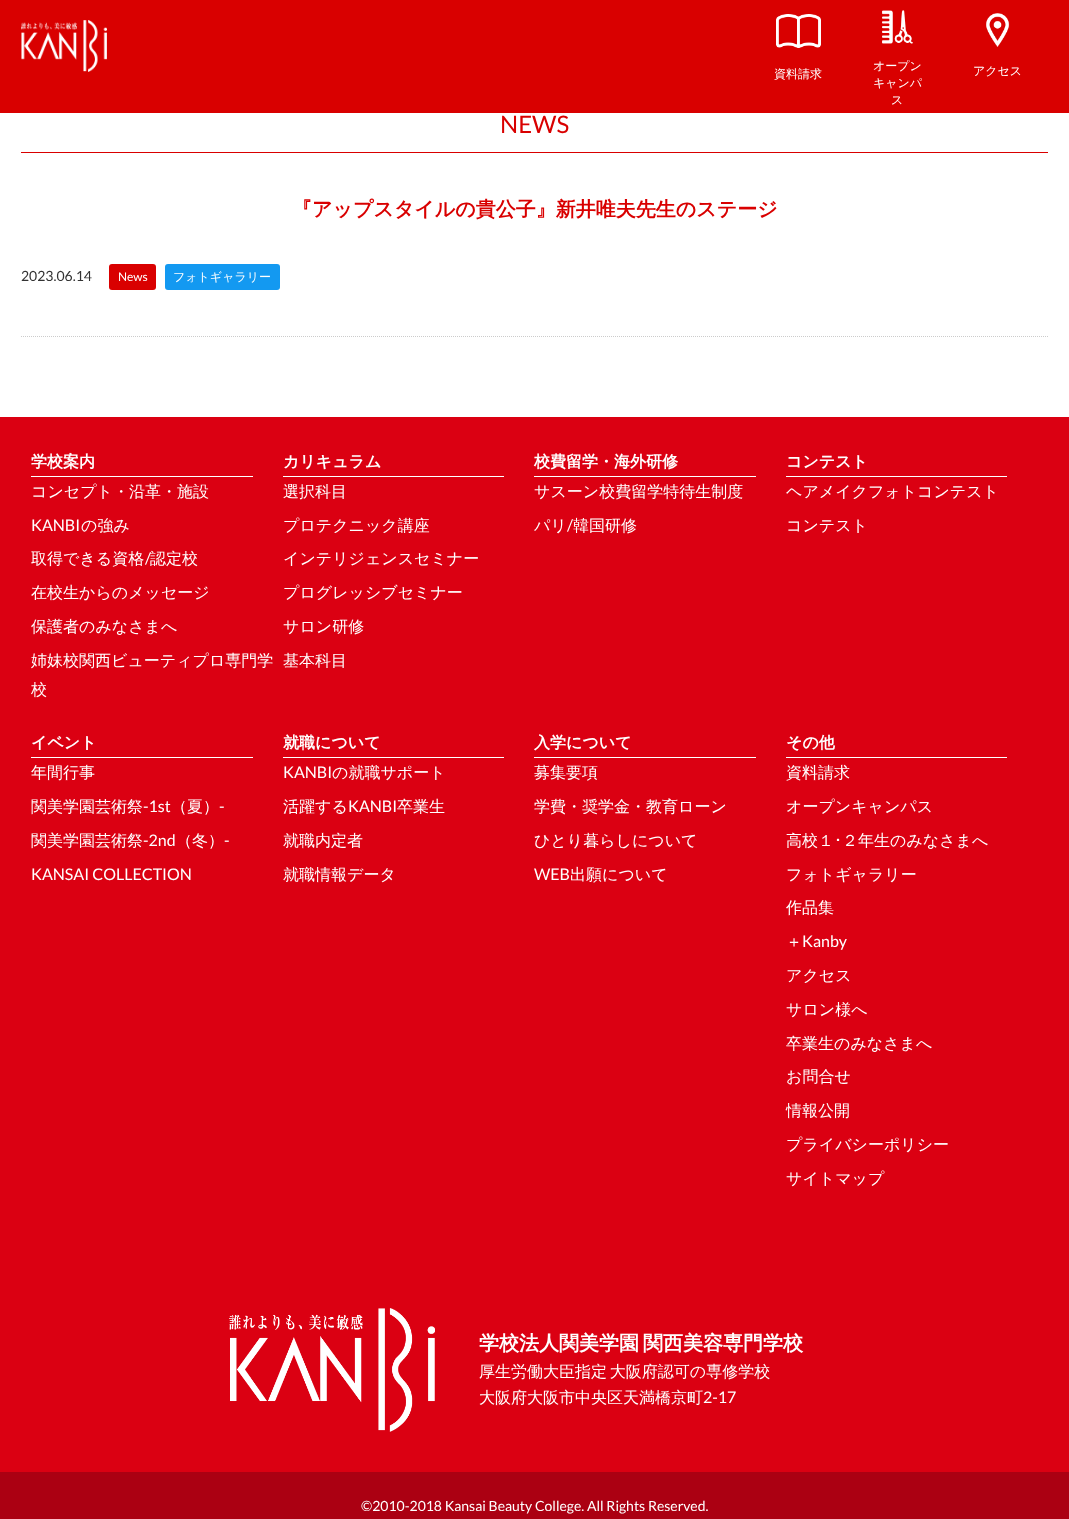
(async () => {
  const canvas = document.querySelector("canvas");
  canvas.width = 1069;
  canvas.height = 1519;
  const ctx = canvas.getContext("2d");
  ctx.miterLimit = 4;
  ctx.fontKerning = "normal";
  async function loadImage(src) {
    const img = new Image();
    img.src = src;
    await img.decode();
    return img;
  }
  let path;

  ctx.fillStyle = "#ffffff";
  ctx.fillRect(0, 0, 1069, 1519);
  ctx.fillStyle = "#d90000";
  ctx.fillRect(0, 0, 1069, 113);
  ctx.drawImage(await loadImage("img/1.png"), 21, 20, 86, 52);
  ctx.drawImage(await loadImage("img/2.png"), 776, 14, 45, 34);
  ctx.drawImage(await loadImage("img/3.png"), 882, 10, 31, 34);
  ctx.drawImage(await loadImage("img/4.png"), 986, 13, 24, 34);
  ctx.fillRect(21, 152, 1027, 1);
  ctx.beginPath();
  ctx.roundRect(109, 264, 47, 26, 3);
  ctx.fill();
  ctx.fillStyle = "#1399f1";
  ctx.beginPath();
  ctx.roundRect(165, 264, 115, 26, 3);
  ctx.fill();
  path = new Path2D("M21 336.5H1048");
  ctx.strokeStyle = "#cccccc";
  ctx.setLineDash([1, 1]);
  ctx.stroke(path);
  for (const [x, y, w, h, color] of [
    [0, 417, 1069, 1055, "#db0012"],
    [31, 476, 222, 1, "#ffffff"],
    [283, 476, 221, 1, "#ffffff"],
    [534, 476, 222, 1, "#ffffff"],
    [786, 476, 221, 1, "#ffffff"],
    [31, 757, 222, 1, "#ffffff"],
    [283, 757, 221, 1, "#ffffff"],
    [534, 757, 222, 1, "#ffffff"],
    [786, 757, 221, 1, "#ffffff"],
  ]) {
    ctx.fillStyle = color;
    ctx.fillRect(x, y, w, h);
  }
  ctx.drawImage(await loadImage("img/5.png"), 229, 1308, 206, 124);
  ctx.fillStyle = "#ab0012";
  ctx.fillRect(0, 1472, 1069, 47);
  ctx.font = "500 12px WenQuanYi Zen Hei";
  ctx.fillStyle = "#ffffff";
  for (const [text, x, y] of [
    ["資料請求", 774, 78],
    ["オープン", 873, 70],
    ["キャンパ", 873, 87],
    ["ス", 891, 104],
    ["アクセス", 973, 75],
  ]) {
    ctx.fillText(text, x, y);
  }
  ctx.font = "24px Lato";
  ctx.fillStyle = "#d90000";
  ctx.fillText("NEWS", 500, 133);
  ctx.font = "bold 20px WenQuanYi Zen Hei";
  ctx.fillText("『アップスタイルの貴公子』新井唯夫先生のステージ", 292, 216);
  ctx.font = "14px Lato";
  ctx.fillStyle = "#333333";
  ctx.fillText("2023.06.14", 21, 281);
  ctx.font = "12px Lato";
  ctx.fillStyle = "#ffffff";
  ctx.fillText("News", 118, 281);
  ctx.font = "500 12px WenQuanYi Zen Hei";
  ctx.fillText("フォトギャラリー", 173, 281);
  ctx.font = "bold 16px WenQuanYi Zen Hei";
  ctx.fillText("学校案内", 31, 467);
  ctx.font = "500 16px WenQuanYi Zen Hei";
  ctx.fillText("コンセプト・沿革・施設", 31, 497);
  ctx.font = "16px Lato";
  ctx.fillText("KANBI", 31, 531);
  ctx.font = "500 16px WenQuanYi Zen Hei";
  ctx.fillText("の強み", 81, 531);
  ctx.fillText("取得できる資格", 31, 564);
  ctx.font = "16px Lato";
  ctx.fillText("/", 145, 564);
  ctx.font = "500 16px WenQuanYi Zen Hei";
  for (const [text, x, y] of [
    ["認定校", 150, 564],
    ["在校生からのメッセージ", 31, 598],
    ["保護者のみなさまへ", 31, 632],
    ["姉妹校関西ビューティプロ専門学", 31, 666],
    ["校", 31, 695],
  ]) {
    ctx.fillText(text, x, y);
  }
  ctx.font = "bold 16px WenQuanYi Zen Hei";
  ctx.fillText("カリキュラム", 283, 467);
  ctx.font = "500 16px WenQuanYi Zen Hei";
  for (const [text, x, y] of [
    ["選択科目", 283, 497],
    ["プロテクニック講座", 283, 531],
    ["インテリジェンスセミナー", 283, 564],
    ["プログレッシブセミナー", 283, 598],
    ["サロン研修", 283, 632],
    ["基本科目", 283, 666],
  ]) {
    ctx.fillText(text, x, y);
  }
  ctx.font = "bold 16px WenQuanYi Zen Hei";
  ctx.fillText("校費留学・海外研修", 534, 467);
  ctx.font = "500 16px WenQuanYi Zen Hei";
  ctx.fillText("サスーン校費留学特待生制度", 534, 497);
  ctx.fillText("パリ", 534, 531);
  ctx.font = "16px Lato";
  ctx.fillText("/", 567, 531);
  ctx.font = "500 16px WenQuanYi Zen Hei";
  ctx.fillText("韓国研修", 573, 531);
  ctx.font = "bold 16px WenQuanYi Zen Hei";
  ctx.fillText("コンテスト", 786, 467);
  ctx.font = "500 16px WenQuanYi Zen Hei";
  ctx.fillText("ヘアメイクフォトコンテスト", 786, 497);
  ctx.fillText("コンテスト", 786, 531);
  ctx.font = "bold 16px WenQuanYi Zen Hei";
  ctx.fillText("イベント", 31, 748);
  ctx.font = "500 16px WenQuanYi Zen Hei";
  ctx.fillText("年間行事", 31, 778);
  ctx.fillText("関美学園芸術祭", 31, 812);
  ctx.font = "16px Lato";
  ctx.fillText("-1st", 143, 812);
  ctx.font = "500 16px WenQuanYi Zen Hei";
  ctx.fillText("（夏）", 171, 812);
  ctx.font = "16px Lato";
  ctx.fillText("-", 219, 812);
  ctx.font = "500 16px WenQuanYi Zen Hei";
  ctx.fillText("関美学園芸術祭", 31, 846);
  ctx.font = "16px Lato";
  ctx.fillText("-2nd", 143, 846);
  ctx.font = "500 16px WenQuanYi Zen Hei";
  ctx.fillText("（冬）", 176, 846);
  ctx.font = "16px Lato";
  ctx.fillText("-", 224, 846);
  ctx.fillText("KANSAI COLLECTION", 31, 880);
  ctx.font = "bold 16px WenQuanYi Zen Hei";
  ctx.fillText("就職について", 283, 748);
  ctx.font = "16px Lato";
  ctx.fillText("KANBI", 283, 778);
  ctx.font = "500 16px WenQuanYi Zen Hei";
  ctx.fillText("の就職サポート", 332, 778);
  ctx.fillText("活躍する", 283, 812);
  ctx.font = "16px Lato";
  ctx.fillText("KANBI", 348, 812);
  ctx.font = "500 16px WenQuanYi Zen Hei";
  for (const [text, x, y] of [
    ["卒業生", 397, 812],
    ["就職内定者", 283, 846],
    ["就職情報データ", 283, 880],
  ]) {
    ctx.fillText(text, x, y);
  }
  ctx.font = "bold 16px WenQuanYi Zen Hei";
  ctx.fillText("入学について", 534, 748);
  ctx.font = "500 16px WenQuanYi Zen Hei";
  for (const [text, x, y] of [
    ["募集要項", 534, 778],
    ["学費・奨学金・教育ローン", 534, 812],
    ["ひとり暮らしについて", 534, 846],
  ]) {
    ctx.fillText(text, x, y);
  }
  ctx.font = "16px Lato";
  ctx.fillText("WEB", 534, 880);
  ctx.font = "500 16px WenQuanYi Zen Hei";
  ctx.fillText("出願について", 570, 880);
  ctx.font = "bold 16px WenQuanYi Zen Hei";
  ctx.fillText("その他", 786, 748);
  ctx.font = "500 16px WenQuanYi Zen Hei";
  for (const [text, x, y] of [
    ["資料請求", 786, 778],
    ["オープンキャンパス", 786, 812],
    ["高校１", 786, 846],
  ]) {
    ctx.fillText(text, x, y);
  }
  ctx.font = "16px IPAPGothic";
  ctx.fillText("･", 834, 846);
  ctx.font = "500 16px WenQuanYi Zen Hei";
  for (const [text, x, y] of [
    ["２年生のみなさまへ", 842, 846],
    ["フォトギャラリー", 786, 880],
    ["作品集", 786, 913],
    ["＋", 786, 947],
  ]) {
    ctx.fillText(text, x, y);
  }
  ctx.font = "16px Lato";
  ctx.fillText("Kanby", 802, 947);
  ctx.font = "500 16px WenQuanYi Zen Hei";
  for (const [text, x, y] of [
    ["アクセス", 786, 981],
    ["サロン様へ", 786, 1015],
    ["卒業生のみなさまへ", 786, 1049],
    ["お問合せ", 786, 1082],
    ["情報公開", 786, 1116],
    ["プライバシーポリシー", 786, 1150],
    ["サイトマップ", 786, 1184],
  ]) {
    ctx.fillText(text, x, y);
  }
  ctx.wordSpacing = "-2px";
  ctx.font = "bold 20px WenQuanYi Zen Hei";
  ctx.fillText("学校法人関美学園 関西美容専門学校", 479, 1350);
  ctx.font = "500 16px WenQuanYi Zen Hei";
  ctx.fillText("厚生労働大臣指定 大阪府認可の専修学校", 479, 1377);
  ctx.wordSpacing = "0px";
  ctx.fillText("大阪府大阪市中央区天満橋京町", 479, 1403);
  ctx.font = "16px Lato";
  ctx.fillText("2-17", 703, 1403);
  ctx.font = "14px Lato";
  ctx.fillText("©2010-2018 Kansai Beauty College. All Rights Reserved.", 361, 1511);
})();
